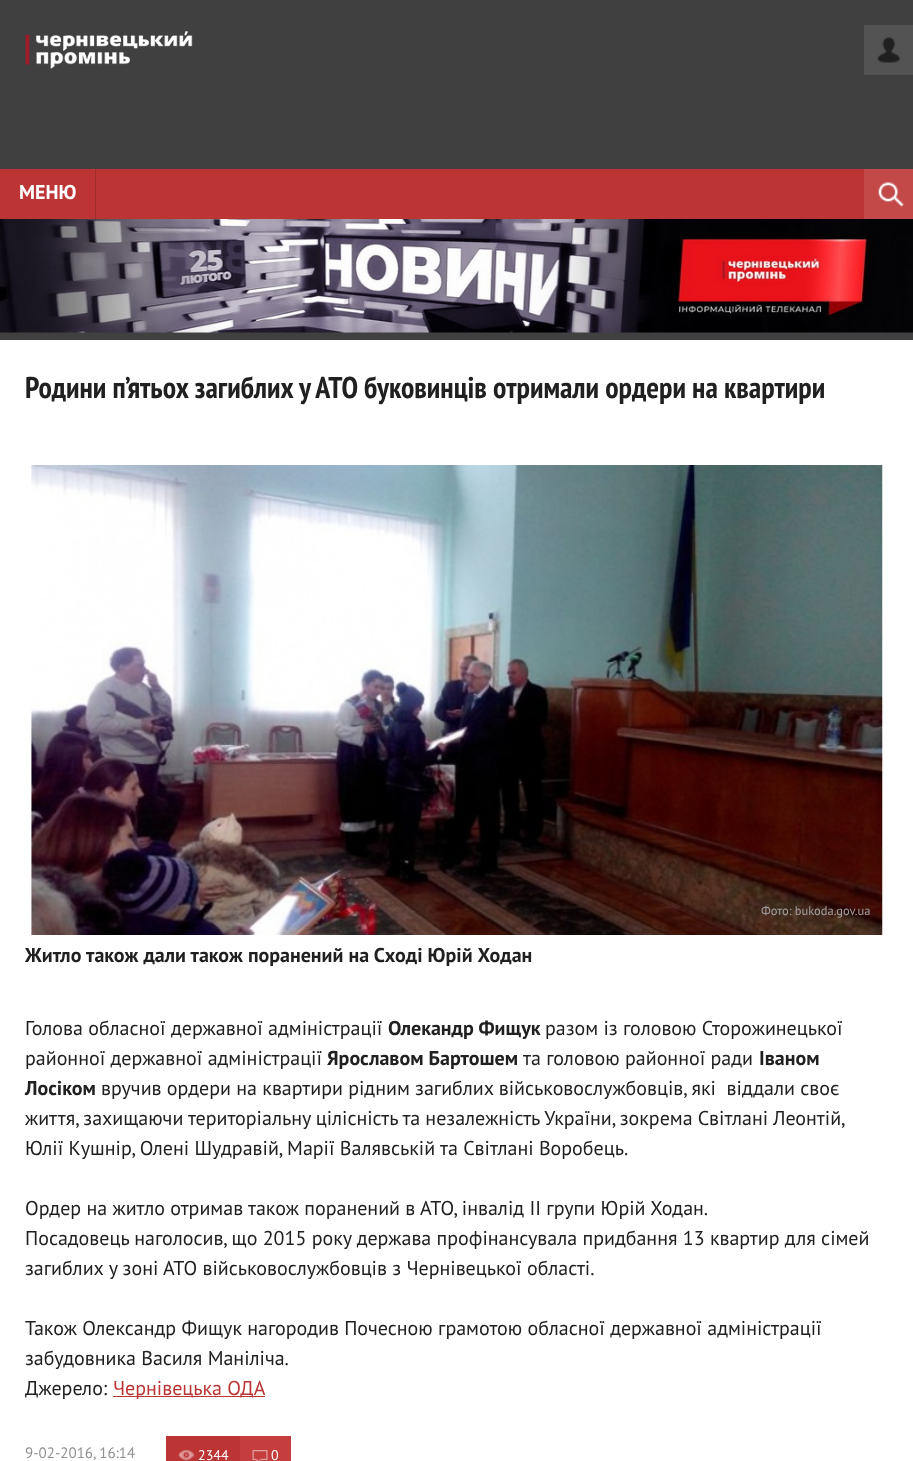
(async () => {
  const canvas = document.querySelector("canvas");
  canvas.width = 913;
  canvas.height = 1461;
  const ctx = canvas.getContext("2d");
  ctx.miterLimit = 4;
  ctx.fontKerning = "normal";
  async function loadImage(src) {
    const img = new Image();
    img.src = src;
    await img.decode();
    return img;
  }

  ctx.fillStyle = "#404040";
  ctx.fillRect(0, 0, 913, 1461);
  ctx.drawImage(await loadImage("img/1.png"), 25, 31, 168, 38);
  ctx.fillStyle = "#535353";
  ctx.fillRect(864, 25, 49, 50);
  ctx.drawImage(await loadImage("img/2.png"), 877, 37, 23, 26);
  for (const [x, y, w, h, color] of [
    [0, 169, 864, 50, "#bc3434"],
    [95, 169, 1, 50, "#a02c2c"],
    [864, 169, 49, 50, "#c34848"],
  ]) {
    ctx.fillStyle = color;
    ctx.fillRect(x, y, w, h);
  }
  ctx.drawImage(await loadImage("img/3.png"), 878, 182, 26, 25);
  ctx.drawImage(await loadImage("img/4.png"), 0, 219, 913, 114);
  ctx.fillStyle = "#ffffff";
  ctx.fillRect(0, 340, 913, 1121);
  ctx.drawImage(await loadImage("img/5.png"), 31, 465, 852, 470);
  ctx.fillStyle = "#bc3434";
  ctx.fillRect(113, 1396, 152, 1);
  ctx.fillRect(166, 1436, 74, 25);
  ctx.drawImage(await loadImage("img/6.png"), 178, 1450, 16, 11);
  ctx.fillStyle = "#c53d3d";
  ctx.fillRect(240, 1436, 51, 25);
  ctx.drawImage(await loadImage("img/7.png"), 252, 1450, 16, 11);
  ctx.font = "bold 20px PT Sans";
  ctx.fillStyle = "#ffffff";
  ctx.fillText("МЕНЮ", 19, 199);
  ctx.font = "bold 30px PT Sans Narrow";
  ctx.fillStyle = "#202020";
  ctx.fillText("Родини п’ятьох загиблих у АТО буковинців отримали ордери на квартири", 25, 398);
  ctx.font = "12.5px PT Sans";
  ctx.fillStyle = "#a0a0a0";
  ctx.fillText("Фото: bukoda.gov.ua", 761, 915);
  ctx.font = "bold 20px PT Sans";
  ctx.fillStyle = "#202020";
  ctx.fillText("Житло також дали також поранений на Сході Юрій Ходан", 25, 962);
  ctx.font = "20px PT Sans";
  ctx.fillText("Голова обласної державної адміністрації", 25, 1035);
  ctx.font = "bold 20px PT Sans";
  ctx.fillText("Олекандр Фищук", 388, 1035);
  ctx.font = "20px PT Sans";
  ctx.fillText("разом із головою Сторожинецької", 545, 1035);
  ctx.fillText("районної державної адміністрації", 25, 1065);
  ctx.font = "bold 20px PT Sans";
  ctx.fillText("Ярославом Бартошем", 327, 1065);
  ctx.font = "20px PT Sans";
  ctx.fillText("та головою районної ради", 523, 1065);
  ctx.font = "bold 20px PT Sans";
  ctx.fillText("Іваном", 759, 1065);
  ctx.fillText("Лосіком", 25, 1095);
  ctx.font = "20px PT Sans";
  ctx.fillText("вручив ордери на квартири рідним загиблих військовослужбовців, які  віддали своє", 101, 1095);
  ctx.wordSpacing = "-0.25px";
  ctx.fillText("життя, захищаючи територіальну цілісність та незалежність України, зокрема Світлані Леонтій,", 25, 1125);
  ctx.wordSpacing = "0px";
  for (const [text, x, y] of [
    ["Юлії Кушнір, Олені Шудравій, Марії Валявській та Світлані Воробець.", 25, 1155],
    ["Ордер на житло отримав також поранений в АТО, інвалід ІІ групи Юрій Ходан.", 25, 1215],
    ["Посадовець наголосив, що 2015 року держава профінансувала придбання 13 квартир для сімей", 25, 1245],
    ["загиблих у зоні АТО військовослужбовців з Чернівецької області.", 25, 1275],
    ["Також Олександр Фищук нагородив Почесною грамотою обласної державної адміністрації", 25, 1335],
    ["забудовника Василя Маніліча.", 25, 1365],
    ["Джерело:", 25, 1395],
  ]) {
    ctx.fillText(text, x, y);
  }
  ctx.fillStyle = "#bc3434";
  ctx.fillText("Чернівецька ОДА", 113, 1395);
  ctx.font = "15px PT Sans";
  ctx.fillStyle = "#909090";
  ctx.fillText("9-02-2016, 16:14", 25, 1458);
  ctx.font = "14px PT Sans";
  ctx.fillStyle = "#ffffff";
  ctx.fillText("2344", 198, 1460);
  ctx.fillText("0", 271, 1460);
})();
